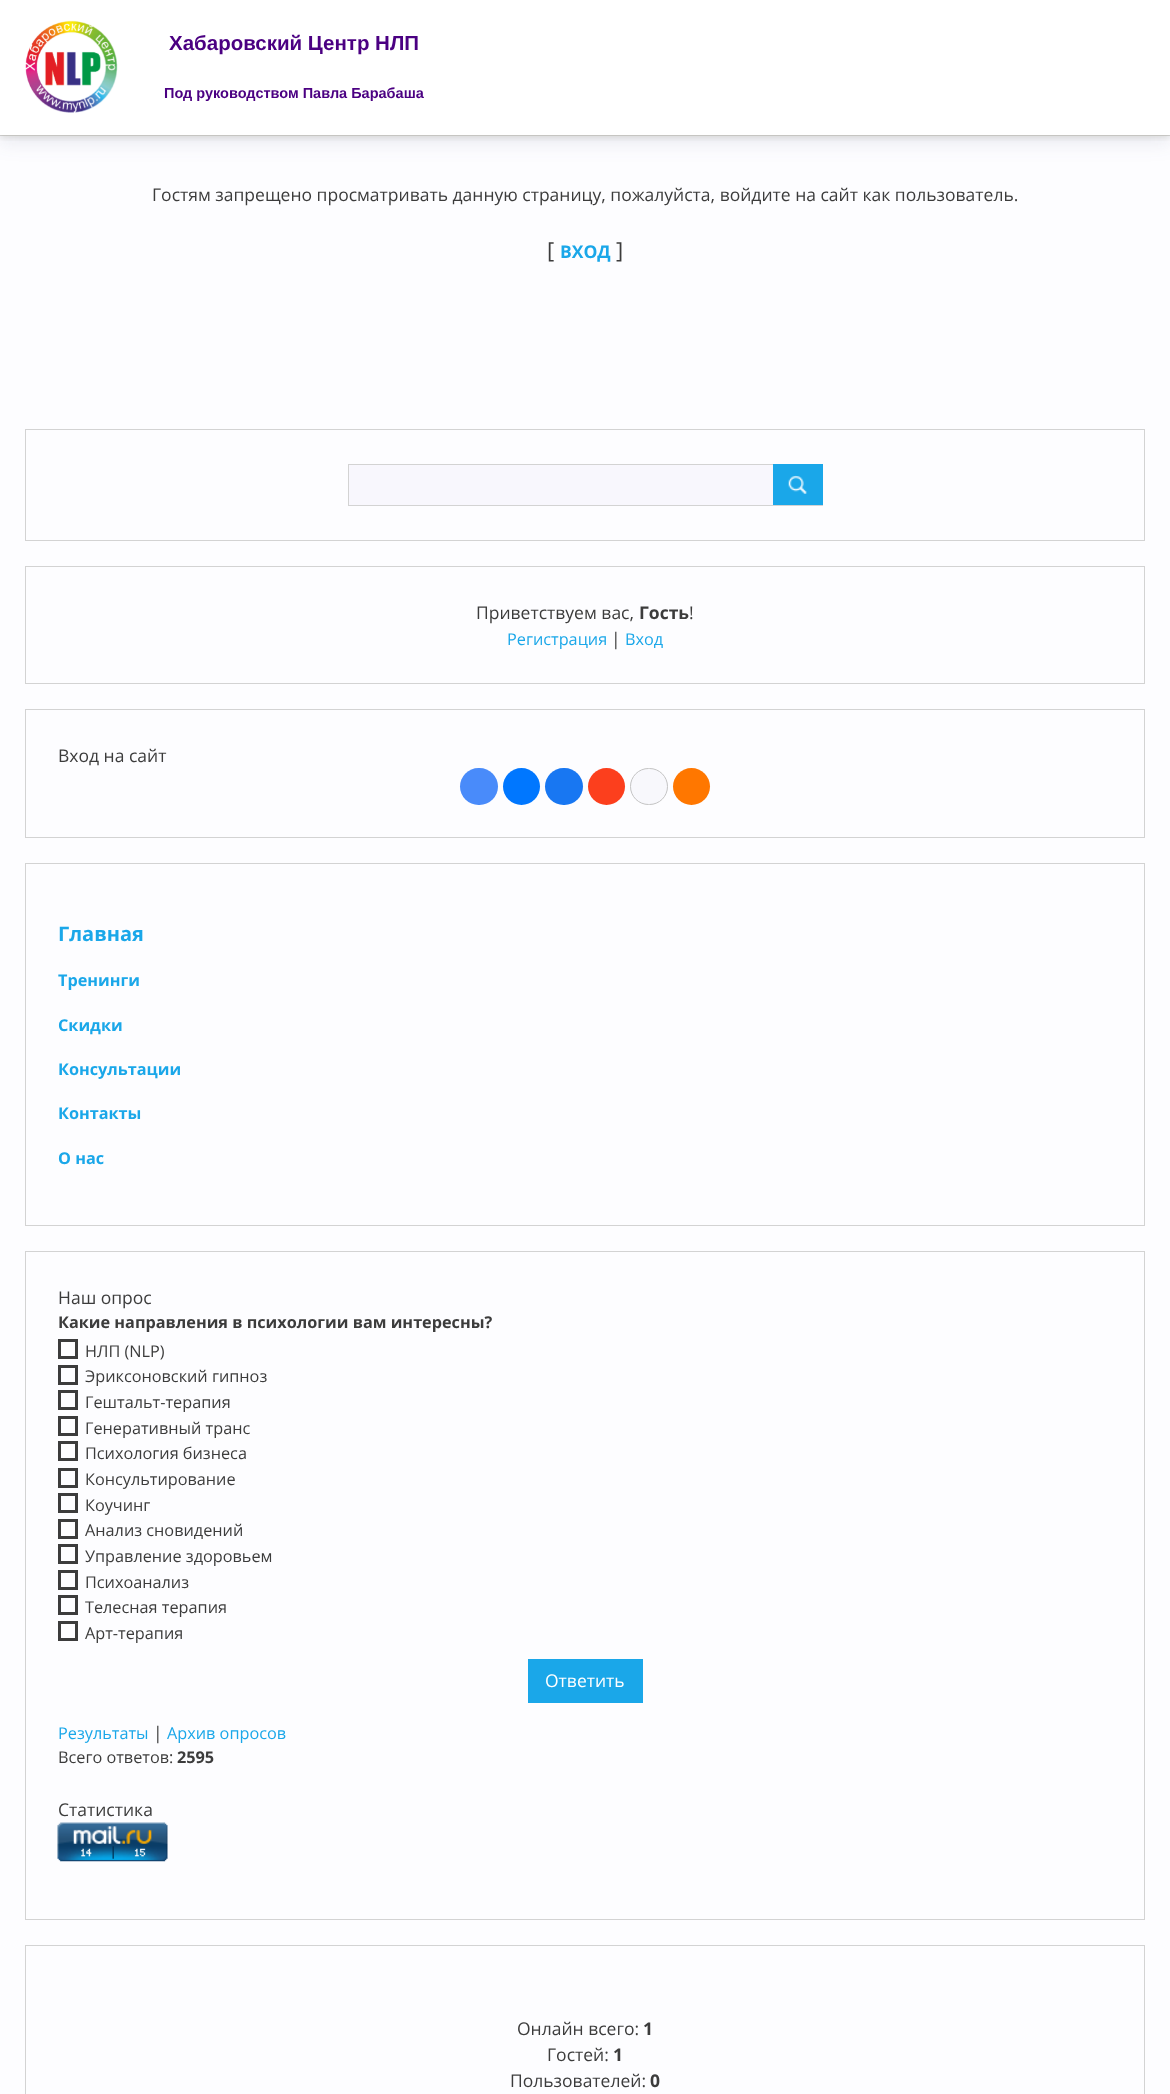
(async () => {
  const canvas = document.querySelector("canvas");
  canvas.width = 1170;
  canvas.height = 2094;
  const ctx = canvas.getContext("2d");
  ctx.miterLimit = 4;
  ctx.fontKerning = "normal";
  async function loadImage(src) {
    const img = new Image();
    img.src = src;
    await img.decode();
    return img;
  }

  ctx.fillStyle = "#fdfdff";
  ctx.fillRect(0, 0, 1170, 2094);
  ctx.fillStyle = "rgba(46, 62, 108, 0.1)";
  ctx.filter = "blur(9.5px)";
  ctx.beginPath();
  ctx.rect(0, 6, 1170, 137);
  ctx.fill();
  ctx.filter = "none";
  ctx.fillStyle = "#ffffff";
  ctx.fillRect(0, 0, 1170, 135);
  ctx.fillStyle = "#d3d3d3";
  ctx.fillRect(0, 135, 1170, 1);
  ctx.save();
  ctx.beginPath();
  ctx.rect(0, 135, 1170, 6);
  ctx.clip();
  ctx.fillStyle = "rgba(48, 37, 0, 0.1)";
  ctx.filter = "blur(3px)";
  ctx.beginPath();
  ctx.rect(0, 3, 1170, 135);
  ctx.fill();
  ctx.filter = "none";
  ctx.restore();
  ctx.drawImage(await loadImage("img/1.png"), 25, 20, 93, 93);
  ctx.strokeStyle = "#d3d3d3";
  ctx.strokeRect(25.5, 429.5, 1119, 111);
  ctx.fillStyle = "#f8f7fd";
  ctx.fillRect(349, 465, 424, 40);
  ctx.strokeRect(348.5, 464.5, 474, 41);
  ctx.fillStyle = "#1aa7e9";
  ctx.fillRect(773, 464, 50, 41);
  ctx.drawImage(await loadImage("img/2.png"), 788, 475, 19, 19);
  ctx.strokeRect(25.5, 566.5, 1119, 117);
  ctx.strokeRect(25.5, 709.5, 1119, 128);
  ctx.fillStyle = "#498bfa";
  ctx.beginPath();
  ctx.roundRect(460, 768, 38, 37, 18.5);
  ctx.fill();
  ctx.fillStyle = "#0077ff";
  ctx.beginPath();
  ctx.arc(521.5, 786.5, 18.5, 0, Math.PI * 2);
  ctx.fill();
  ctx.fillStyle = "#1877f2";
  ctx.beginPath();
  ctx.roundRect(545, 768, 38, 37, 18.5);
  ctx.fill();
  ctx.fillStyle = "#fc3f1d";
  ctx.beginPath();
  ctx.arc(606.5, 786.5, 18.5, 0, Math.PI * 2);
  ctx.fill();
  ctx.fillStyle = "#f8f8fc";
  ctx.beginPath();
  ctx.roundRect(630.5, 768.5, 37, 36, 18);
  ctx.fill();
  ctx.strokeStyle = "#c4c4c4";
  ctx.stroke();
  ctx.fillStyle = "#ff7700";
  ctx.beginPath();
  ctx.arc(691.5, 786.5, 18.5, 0, Math.PI * 2);
  ctx.fill();
  ctx.strokeStyle = "#d3d3d3";
  ctx.strokeRect(25.5, 863.5, 1119, 362);
  ctx.strokeRect(25.5, 1251.5, 1119, 668);
  ctx.strokeStyle = "#3c3c3c";
  ctx.lineWidth = 3;
  ctx.strokeRect(59.5, 1340.5, 17, 17);
  ctx.strokeRect(59.5, 1366.5, 17, 17);
  ctx.strokeRect(59.5, 1391.5, 17, 17);
  ctx.strokeRect(59.5, 1417.5, 17, 17);
  ctx.strokeRect(59.5, 1442.5, 17, 17);
  ctx.strokeRect(59.5, 1469.5, 17, 17);
  ctx.strokeRect(59.5, 1494.5, 17, 17);
  ctx.strokeRect(59.5, 1520.5, 17, 17);
  ctx.strokeRect(59.5, 1545.5, 17, 17);
  ctx.strokeRect(59.5, 1571.5, 17, 17);
  ctx.strokeRect(59.5, 1596.5, 17, 17);
  ctx.strokeRect(59.5, 1622.5, 17, 17);
  ctx.fillStyle = "#1aa7e9";
  ctx.fillRect(528, 1659, 115, 44);
  ctx.drawImage(await loadImage("img/3.png"), 57, 1822, 111, 40);
  ctx.strokeStyle = "#d3d3d3";
  ctx.lineWidth = 1;
  ctx.strokeRect(25.5, 1945.5, 1119, 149);
  ctx.font = "bold 20.5px Liberation Sans";
  ctx.fillStyle = "#4b0082";
  ctx.fillText("Хабаровский Центр НЛП", 169, 50);
  ctx.font = "bold 14.5px Liberation Sans";
  ctx.fillText("Под руководством Павла Барабаша", 164, 98);
  ctx.font = "17.5px Open Sans";
  ctx.fillStyle = "#3c3c3c";
  ctx.fillText("Гостям запрещено просматривать данную страницу, пожалуйста, войдите на сайт как пользователь.", 152, 201);
  ctx.font = "22px Open Sans";
  ctx.fillText("[", 547, 258);
  ctx.font = "bold 17.5px Open Sans";
  ctx.fillStyle = "#1aa7e9";
  ctx.fillText("ВХОД", 560, 258);
  ctx.font = "22px Open Sans";
  ctx.fillStyle = "#3c3c3c";
  ctx.fillText("]", 616, 258);
  ctx.font = "17.5px Open Sans";
  ctx.fillText("Приветствуем вас,", 476, 619);
  ctx.font = "bold 17.5px Open Sans";
  ctx.fillText("Гость", 639, 619);
  ctx.font = "17.5px Open Sans";
  ctx.fillText("!", 689, 619);
  ctx.font = "16.25px Open Sans";
  ctx.fillStyle = "#1aa7e9";
  ctx.fillText("Регистрация", 507, 645);
  ctx.font = "17.5px Open Sans";
  ctx.fillStyle = "#3c3c3c";
  ctx.fillText("|", 611, 645);
  ctx.font = "16.25px Open Sans";
  ctx.fillStyle = "#1aa7e9";
  ctx.fillText("Вход", 625, 645);
  ctx.font = "17.5px Open Sans";
  ctx.fillStyle = "#3c3c3c";
  ctx.fillText("Вход на сайт", 58, 762);
  ctx.font = "bold 20px Open Sans";
  ctx.fillStyle = "#1aa7e9";
  ctx.fillText("Главная", 58, 941);
  ctx.font = "bold 16.25px Open Sans";
  for (const [text, x, y] of [
    ["Тренинги", 58, 986],
    ["Скидки", 58, 1031],
    ["Консультации", 58, 1075],
    ["Контакты", 58, 1119],
    ["О нас", 58, 1164],
  ]) {
    ctx.fillText(text, x, y);
  }
  ctx.font = "17.5px Open Sans";
  ctx.fillStyle = "#3c3c3c";
  ctx.fillText("Наш опрос", 58, 1304);
  ctx.font = "bold 16.25px Open Sans";
  ctx.fillText("Какие направления в психологии вам интересны?", 58, 1328);
  ctx.font = "16.25px Open Sans";
  for (const [text, x, y] of [
    ["НЛП (NLP)", 85, 1357],
    ["Эриксоновский гипноз", 85, 1382],
    ["Гештальт-терапия", 85, 1408],
    ["Генеративный транс", 85, 1434],
    ["Психология бизнеса", 85, 1459],
    ["Консультирование", 85, 1485],
    ["Коучинг", 85, 1511],
    ["Анализ сновидений", 85, 1536],
    ["Управление здоровьем", 85, 1562],
    ["Психоанализ", 85, 1588],
    ["Телесная терапия", 85, 1613],
    ["Арт-терапия", 85, 1639],
  ]) {
    ctx.fillText(text, x, y);
  }
  ctx.font = "17.5px Open Sans";
  ctx.fillStyle = "#ffffff";
  ctx.fillText("Ответить", 545, 1687);
  ctx.font = "16.25px Open Sans";
  ctx.fillStyle = "#1aa7e9";
  ctx.fillText("Результаты", 58, 1739);
  ctx.font = "17.5px Open Sans";
  ctx.fillStyle = "#3c3c3c";
  ctx.fillText("|", 153, 1739);
  ctx.font = "16.25px Open Sans";
  ctx.fillStyle = "#1aa7e9";
  ctx.fillText("Архив опросов", 167, 1739);
  ctx.fillStyle = "#3c3c3c";
  ctx.fillText("Всего ответов:", 58, 1763);
  ctx.font = "bold 16.25px Open Sans";
  ctx.fillText("2595", 177, 1763);
  ctx.font = "17.5px Open Sans";
  ctx.fillText("Статистика", 58, 1816);
  ctx.fillText("Онлайн всего:", 517, 2035);
  ctx.font = "bold 17.5px Open Sans";
  ctx.fillText("1", 643, 2035);
  ctx.font = "17.5px Open Sans";
  ctx.fillText("Гостей:", 547, 2061);
  ctx.font = "bold 17.5px Open Sans";
  ctx.fillText("1", 613, 2061);
  ctx.font = "17.5px Open Sans";
  ctx.fillText("Пользователей:", 510, 2087);
  ctx.font = "bold 17.5px Open Sans";
  ctx.fillText("0", 650, 2087);
})();
